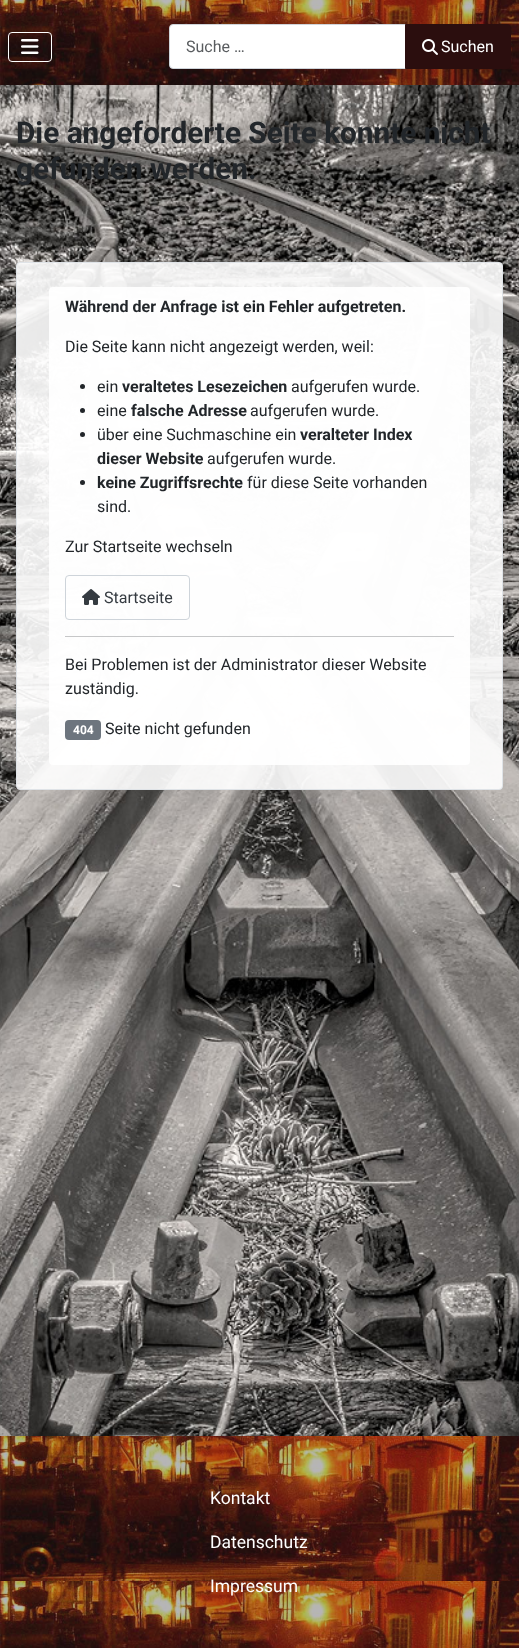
(async () => {
  const canvas = document.querySelector("canvas");
  canvas.width = 519;
  canvas.height = 1648;
  const ctx = canvas.getContext("2d");
  ctx.miterLimit = 4;
  ctx.fontKerning = "normal";
  async function loadImage(src) {
    const img = new Image();
    img.src = src;
    await img.decode();
    return img;
  }

  ctx.fillStyle = "#ffffff";
  ctx.fillRect(0, 0, 519, 1648);
  ctx.drawImage(await loadImage("img/1.png"), 0, 85, 519, 1351);
  ctx.drawImage(await loadImage("img/2.png"), 0, 0, 519, 85);
  ctx.beginPath();
  ctx.roundRect(8.5, 32.5, 43, 29, 3.5);
  ctx.strokeStyle = "#ffffff";
  ctx.stroke();
  ctx.drawImage(await loadImage("img/3.png"), 21, 39, 18, 15);
  ctx.beginPath();
  ctx.roundRect(169.5, 24.5, 236, 44, [3.5, 0, 0, 3.5]);
  ctx.fill();
  ctx.strokeStyle = "#ced4da";
  ctx.stroke();
  ctx.fillStyle = "#2b0e0e";
  ctx.beginPath();
  ctx.roundRect(405.5, 24.5, 105, 44, [0, 3.5, 3.5, 0]);
  ctx.fill();
  ctx.strokeStyle = "#2b0e0e";
  ctx.stroke();
  ctx.drawImage(await loadImage("img/4.png"), 422, 39, 16, 16);
  ctx.fillStyle = "rgba(255, 255, 255, 0.9)";
  ctx.beginPath();
  ctx.roundRect(16.5, 262.5, 486, 527, 3.5);
  ctx.fill();
  ctx.strokeStyle = "#dfe3e7";
  ctx.stroke();
  ctx.beginPath();
  ctx.roundRect(49, 287, 421, 478, 4);
  ctx.fill();
  ctx.fillStyle = "#22262a";
  ctx.beginPath();
  ctx.arc(82.5, 386.5, 2.5, 0, Math.PI * 2);
  ctx.fill();
  ctx.beginPath();
  ctx.arc(82.5, 410.5, 2.5, 0, Math.PI * 2);
  ctx.fill();
  ctx.beginPath();
  ctx.arc(82.5, 434.5, 2.5, 0, Math.PI * 2);
  ctx.fill();
  ctx.beginPath();
  ctx.arc(82.5, 482.5, 2.5, 0, Math.PI * 2);
  ctx.fill();
  ctx.beginPath();
  ctx.roundRect(65.5, 575.5, 124, 44, 3.5);
  ctx.strokeStyle = "#ced4da";
  ctx.stroke();
  ctx.drawImage(await loadImage("img/5.png"), 82, 589, 18, 16);
  ctx.fillStyle = "#c6c7c8";
  ctx.fillRect(65, 636, 389, 1);
  ctx.fillStyle = "#6d757e";
  ctx.beginPath();
  ctx.roundRect(65, 720, 36, 20, 4);
  ctx.fill();
  ctx.drawImage(await loadImage("img/6.png"), 0, 1436, 519, 212);
  ctx.font = "16px Roboto";
  ctx.fillStyle = "#595c5f";
  ctx.fillText("Suche …", 186, 52);
  ctx.fillStyle = "#ffffff";
  ctx.fillText("Suchen", 441, 52);
  ctx.font = "bold 29.75px Roboto";
  ctx.fillStyle = "#22262a";
  ctx.fillText("Die angeforderte Seite konnte nicht", 16, 143);
  ctx.fillText("gefunden werden.", 16, 179);
  ctx.font = "bold 16px Roboto";
  ctx.fillText("Während der Anfrage ist ein Fehler aufgetreten.", 65, 312);
  ctx.font = "16px Roboto";
  ctx.fillText("Die Seite kann nicht angezeigt werden, weil:", 65, 352);
  ctx.fillText("ein", 97, 392);
  ctx.font = "bold 16px Roboto";
  ctx.fillText("veraltetes Lesezeichen", 122, 392);
  ctx.font = "16px Roboto";
  ctx.fillText("aufgerufen wurde.", 291, 392);
  ctx.fillText("eine", 97, 416);
  ctx.font = "bold 16px Roboto";
  ctx.fillText("falsche Adresse", 131, 416);
  ctx.font = "16px Roboto";
  ctx.fillText("aufgerufen wurde.", 250, 416);
  ctx.fillText("über eine Suchmaschine ein", 97, 440);
  ctx.font = "bold 16px Roboto";
  ctx.fillText("veralteter Index", 300, 440);
  ctx.fillText("dieser Website", 97, 464);
  ctx.font = "16px Roboto";
  ctx.fillText("aufgerufen wurde.", 207, 464);
  ctx.font = "bold 16px Roboto";
  ctx.fillText("keine Zugriffsrechte", 97, 488);
  ctx.font = "16px Roboto";
  for (const [text, x, y] of [
    ["für diese Seite vorhanden", 247, 488],
    ["sind.", 97, 512],
    ["Zur Startseite wechseln", 65, 552],
  ]) {
    ctx.fillText(text, x, y);
  }
  ctx.fillStyle = "#353b41";
  ctx.fillText("Startseite", 104, 603);
  ctx.fillStyle = "#22262a";
  ctx.fillText("Bei Problemen ist der Administrator dieser Website", 65, 670);
  ctx.fillText("zuständig.", 65, 694);
  ctx.font = "bold 12px Roboto";
  ctx.fillStyle = "#ffffff";
  ctx.fillText("404", 73, 734);
  ctx.font = "16px Roboto";
  ctx.fillStyle = "#22262a";
  ctx.fillText("Seite nicht gefunden", 105, 734);
  ctx.font = "17.5px Roboto";
  ctx.fillStyle = "#ffffff";
  for (const [text, x, y] of [
    ["Kontakt", 210, 1504],
    ["Datenschutz", 210, 1548],
    ["Impressum", 210, 1592],
  ]) {
    ctx.fillText(text, x, y);
  }
})();
